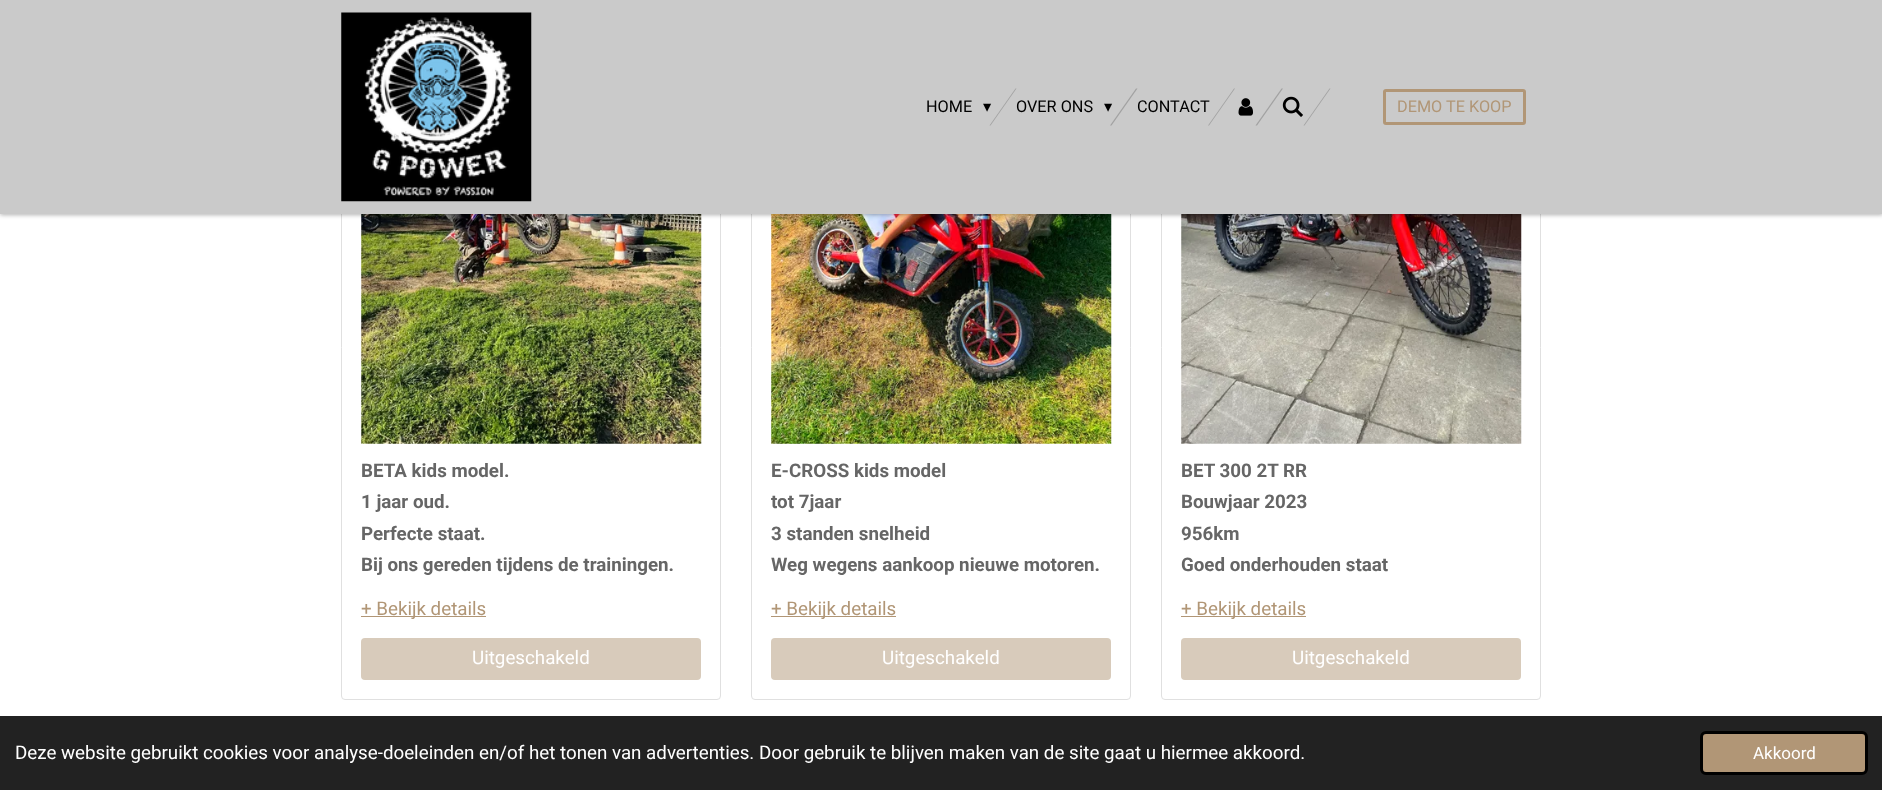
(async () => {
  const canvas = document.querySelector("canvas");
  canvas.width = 1882;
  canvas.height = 790;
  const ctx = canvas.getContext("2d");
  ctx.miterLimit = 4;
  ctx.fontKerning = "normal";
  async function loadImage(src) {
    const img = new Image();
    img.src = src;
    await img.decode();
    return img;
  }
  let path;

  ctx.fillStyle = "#ffffff";
  ctx.fillRect(0, 0, 1882, 790);
  ctx.beginPath();
  ctx.roundRect(341.5, -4.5, 379, 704, 3.5);
  ctx.strokeStyle = "#e0e0e0";
  ctx.stroke();
  ctx.drawImage(await loadImage("img/4.png"), 361, 214, 341, 230);
  ctx.beginPath();
  ctx.roundRect(751.5, -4.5, 379, 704, 3.5);
  ctx.stroke();
  ctx.drawImage(await loadImage("img/5.png"), 771, 214, 341, 230);
  ctx.beginPath();
  ctx.roundRect(1161.5, -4.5, 379, 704, 3.5);
  ctx.stroke();
  ctx.drawImage(await loadImage("img/6.png"), 1181, 214, 341, 230);
  ctx.fillStyle = "rgba(0, 0, 0, 0.3)";
  ctx.filter = "blur(2px)";
  ctx.beginPath();
  ctx.rect(0, 1, 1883, 214);
  ctx.fill();
  ctx.filter = "none";
  ctx.fillStyle = "#cacaca";
  ctx.fillRect(0, 0, 1882, 214);
  ctx.drawImage(await loadImage("img/1.png"), 341, 12, 191, 190);
  ctx.fillStyle = "#a2a2a2";
  path = new Path2D("M1015.5 88.5H1016.5L990.5 125.5H989.5Z");
  ctx.fill(path);
  path = new Path2D("M1136 88.5H1137.5L1111.5 125.5H1110Z");
  ctx.fill(path);
  path = new Path2D("M1234 88.5H1235L1209 125.5H1208Z");
  ctx.fill(path);
  ctx.drawImage(await loadImage("img/2.png"), 1238, 98, 15, 18);
  path = new Path2D("M1281.5 88.5H1283L1257 125.5H1255.5Z");
  ctx.fill(path);
  ctx.drawImage(await loadImage("img/3.png"), 1282, 96, 21, 21);
  path = new Path2D("M1329.5 88.5H1330.5L1304.5 125.5H1303.5Z");
  ctx.fill(path);
  ctx.beginPath();
  ctx.roundRect(1384.5, 90.5, 140, 33, 1.5);
  ctx.strokeStyle = "#b19676";
  ctx.lineWidth = 3;
  ctx.stroke();
  ctx.fillStyle = "#b19676";
  ctx.fillRect(361, 616, 125, 1);
  ctx.fillStyle = "#d8cbbb";
  ctx.beginPath();
  ctx.roundRect(361, 638, 340, 42, 4);
  ctx.fill();
  ctx.fillStyle = "#b19676";
  ctx.fillRect(771, 616, 125, 1);
  ctx.fillStyle = "#d8cbbb";
  ctx.beginPath();
  ctx.roundRect(771, 638, 340, 42, 4);
  ctx.fill();
  ctx.fillStyle = "#b19676";
  ctx.fillRect(1181, 616, 125, 1);
  ctx.fillStyle = "#d8cbbb";
  ctx.beginPath();
  ctx.roundRect(1181, 638, 340, 42, 4);
  ctx.fill();
  ctx.fillStyle = "#222222";
  ctx.fillRect(0, 716, 1882, 74);
  ctx.fillStyle = "#b19676";
  ctx.beginPath();
  ctx.roundRect(1701.5, 732.5, 165, 41, 4.5);
  ctx.fill();
  ctx.strokeStyle = "#000000";
  ctx.stroke();
  ctx.font = "16.25px Roboto";
  ctx.fillStyle = "#000000";
  ctx.fillText("HOME", 926, 112);
  ctx.font = "16.25px DejaVu Sans";
  ctx.fillText("▾", 983, 112);
  ctx.font = "16.25px Roboto";
  ctx.fillText("OVER ONS", 1016, 112);
  ctx.font = "16.25px DejaVu Sans";
  ctx.fillText("▾", 1104, 112);
  ctx.font = "16.25px Roboto";
  ctx.fillText("CONTACT", 1137, 112);
  ctx.fillStyle = "#b19676";
  ctx.fillText("DEMO TE KOOP", 1397, 112);
  ctx.font = "bold 18.75px Roboto";
  ctx.fillStyle = "#666666";
  for (const [text, x, y] of [
    ["BETA kids model.", 361, 477],
    ["1 jaar oud.", 361, 508],
    ["Perfecte staat.", 361, 540],
    ["Bij ons gereden tijdens de trainingen.", 361, 571],
  ]) {
    ctx.fillText(text, x, y);
  }
  ctx.font = "18.75px Roboto";
  ctx.fillStyle = "#b19676";
  ctx.fillText("+ Bekijk details", 361, 615);
  ctx.fillStyle = "#ffffff";
  ctx.fillText("Uitgeschakeld", 472, 664);
  ctx.font = "bold 18.75px Roboto";
  ctx.fillStyle = "#666666";
  for (const [text, x, y] of [
    ["E-CROSS kids model", 771, 477],
    ["tot 7jaar", 771, 508],
    ["3 standen snelheid", 771, 540],
    ["Weg wegens aankoop nieuwe motoren.", 771, 571],
  ]) {
    ctx.fillText(text, x, y);
  }
  ctx.font = "18.75px Roboto";
  ctx.fillStyle = "#b19676";
  ctx.fillText("+ Bekijk details", 771, 615);
  ctx.fillStyle = "#ffffff";
  ctx.fillText("Uitgeschakeld", 882, 664);
  ctx.font = "bold 18.75px Roboto";
  ctx.fillStyle = "#666666";
  for (const [text, x, y] of [
    ["BET 300 2T RR", 1181, 477],
    ["Bouwjaar 2023", 1181, 508],
    ["956km", 1181, 540],
    ["Goed onderhouden staat", 1181, 571],
  ]) {
    ctx.fillText(text, x, y);
  }
  ctx.font = "18.75px Roboto";
  ctx.fillStyle = "#b19676";
  ctx.fillText("+ Bekijk details", 1181, 615);
  ctx.fillStyle = "#ffffff";
  ctx.fillText("Uitgeschakeld", 1292, 664);
  ctx.fillText("Deze website gebruikt cookies voor analyse-doeleinden en/of het tonen van advertenties. Door gebruik te blijven maken van de site gaat u hiermee akkoord.", 15, 759);
  ctx.font = "17px Roboto";
  ctx.fillText("Akkoord", 1753, 759);
})();
